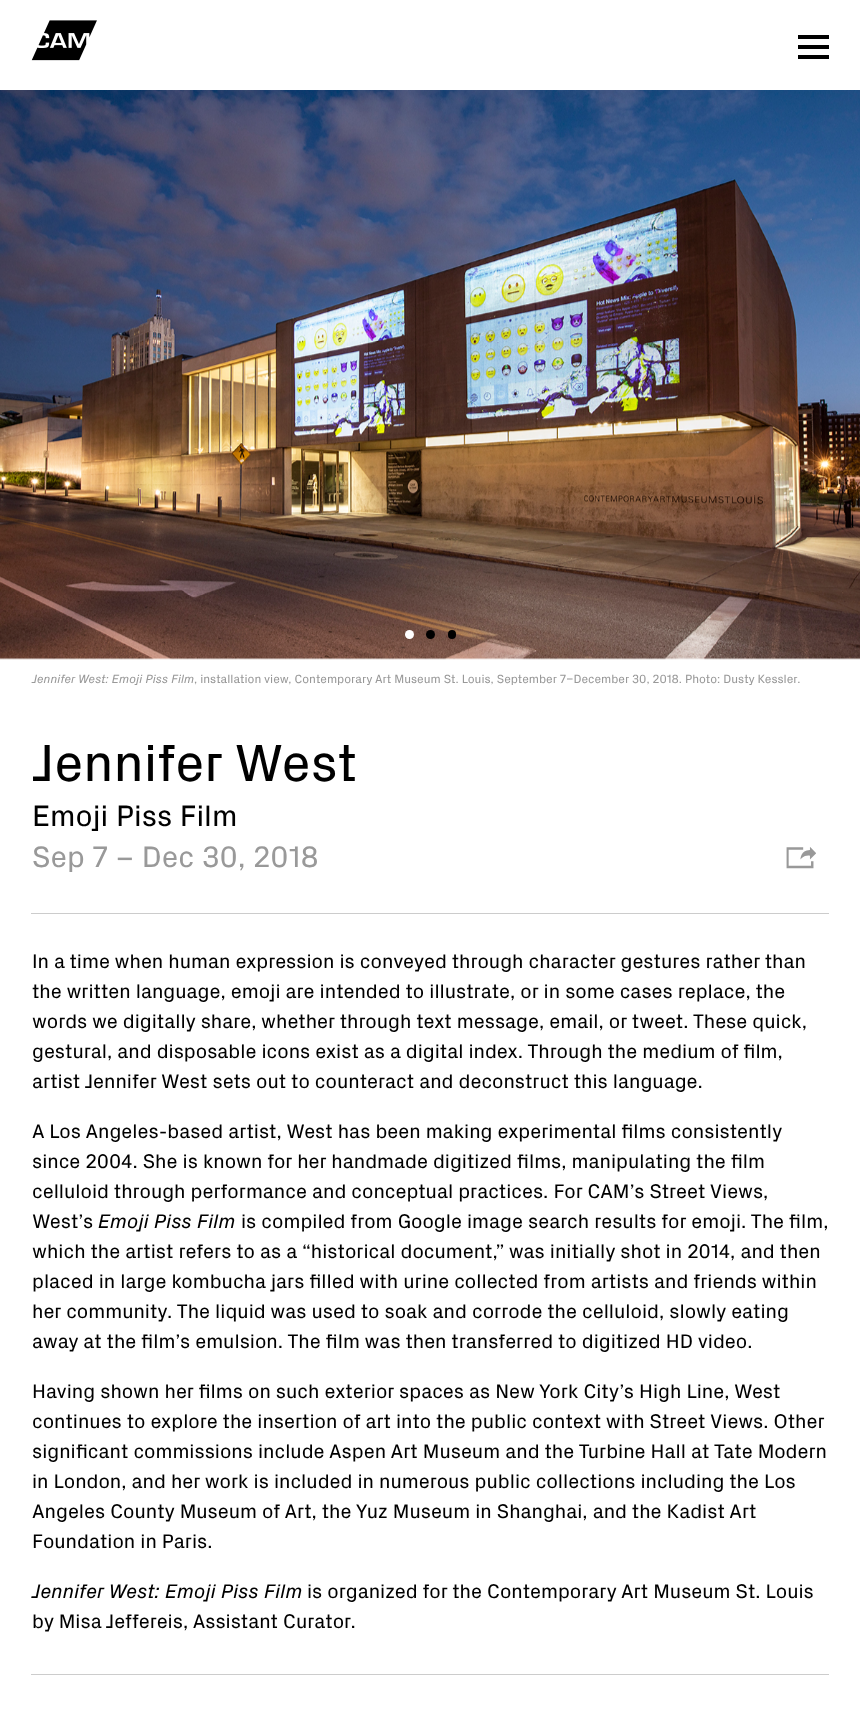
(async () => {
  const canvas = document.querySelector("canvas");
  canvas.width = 860;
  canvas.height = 1717;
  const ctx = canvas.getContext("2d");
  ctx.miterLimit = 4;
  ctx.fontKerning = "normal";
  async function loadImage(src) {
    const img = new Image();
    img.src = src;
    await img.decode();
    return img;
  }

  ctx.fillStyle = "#ffffff";
  ctx.fillRect(0, 0, 860, 1717);
  ctx.drawImage(await loadImage("img/1.png"), 31, 20, 66, 41);
  for (const [x, y, w, h, color] of [
    [798, 35, 31, 4, "#000000"],
    [798, 45, 31, 4, "#000000"],
    [798, 55, 31, 4, "#000000"],
  ]) {
    ctx.fillStyle = color;
    ctx.fillRect(x, y, w, h);
  }
  ctx.drawImage(await loadImage("img/2.png"), 0, 90, 860, 570);
  ctx.fillStyle = "#ffffff";
  ctx.beginPath();
  ctx.arc(409.5, 634.5, 4.5, 0, Math.PI * 2);
  ctx.fill();
  ctx.fillStyle = "#000000";
  ctx.beginPath();
  ctx.arc(430.5, 634.5, 4.5, 0, Math.PI * 2);
  ctx.fill();
  ctx.beginPath();
  ctx.roundRect(448, 630, 8, 9, 4);
  ctx.fill();
  ctx.drawImage(await loadImage("img/3.png"), 786, 847, 30, 22);
  ctx.fillStyle = "#cccccc";
  ctx.fillRect(31, 913, 798, 1);
  ctx.fillRect(31, 1674, 798, 1);
  ctx.font = "italic 12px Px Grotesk";
  ctx.fillStyle = "#999999";
  ctx.fillText("Jennifer West: Emoji Piss Film", 32, 683);
  ctx.font = "12px Px Grotesk";
  ctx.fillText(", installation view, Contemporary Art Museum St. Louis, September 7–December 30, 2018. Photo: Dusty Kessler.", 194, 683);
  ctx.font = "53px Px Grotesk";
  ctx.fillStyle = "#000000";
  ctx.fillText("Jennifer West", 32, 781);
  ctx.font = "30px Px Grotesk";
  ctx.fillText("Emoji Piss Film", 32, 826);
  ctx.fillStyle = "#999999";
  ctx.fillText("Sep 7 – Dec 30, 2018", 32, 867);
  ctx.font = "20px Px Grotesk";
  ctx.fillStyle = "#000000";
  for (const [text, x, y] of [
    ["In a time when human expression is conveyed through character gestures rather than", 32, 968],
    ["the written language, emoji are intended to illustrate, or in some cases replace, the", 32, 998],
    ["words we digitally share, whether through text message, email, or tweet. These quick,", 32, 1028],
    ["gestural, and disposable icons exist as a digital index. Through the medium of film,", 32, 1058],
    ["artist Jennifer West sets out to counteract and deconstruct this language.", 32, 1088],
    ["A Los Angeles-based artist, West has been making experimental films consistently", 32, 1138],
    ["since 2004. She is known for her handmade digitized films, manipulating the film", 32, 1168],
    ["celluloid through performance and conceptual practices. For CAM’s Street Views,", 32, 1198],
    ["West’s", 32, 1228],
  ]) {
    ctx.fillText(text, x, y);
  }
  ctx.font = "italic 20px Px Grotesk";
  ctx.fillText("Emoji Piss Film", 98, 1228);
  ctx.font = "20px Px Grotesk";
  for (const [text, x, y] of [
    ["is compiled from Google image search results for emoji. The film,", 241, 1228],
    ["which the artist refers to as a “historical document,” was initially shot in 2014, and then", 32, 1258],
    ["placed in large kombucha jars filled with urine collected from artists and friends within", 32, 1288],
    ["her community. The liquid was used to soak and corrode the celluloid, slowly eating", 32, 1318],
    ["away at the film’s emulsion. The film was then transferred to digitized HD video.", 32, 1348],
    ["Having shown her films on such exterior spaces as New York City’s High Line, West", 32, 1398],
    ["continues to explore the insertion of art into the public context with Street Views. Other", 32, 1428],
    ["significant commissions include Aspen Art Museum and the Turbine Hall at Tate Modern", 32, 1458],
    ["in London, and her work is included in numerous public collections including the Los", 32, 1488],
    ["Angeles County Museum of Art, the Yuz Museum in Shanghai, and the Kadist Art", 32, 1518],
    ["Foundation in Paris.", 32, 1548],
  ]) {
    ctx.fillText(text, x, y);
  }
  ctx.font = "italic 20px Px Grotesk";
  ctx.fillText("Jennifer West: Emoji Piss Film", 32, 1598);
  ctx.font = "20px Px Grotesk";
  ctx.fillText("is organized for the Contemporary Art Museum St. Louis", 307, 1598);
  ctx.fillText("by Misa Jeffereis, Assistant Curator.", 32, 1628);
})();
